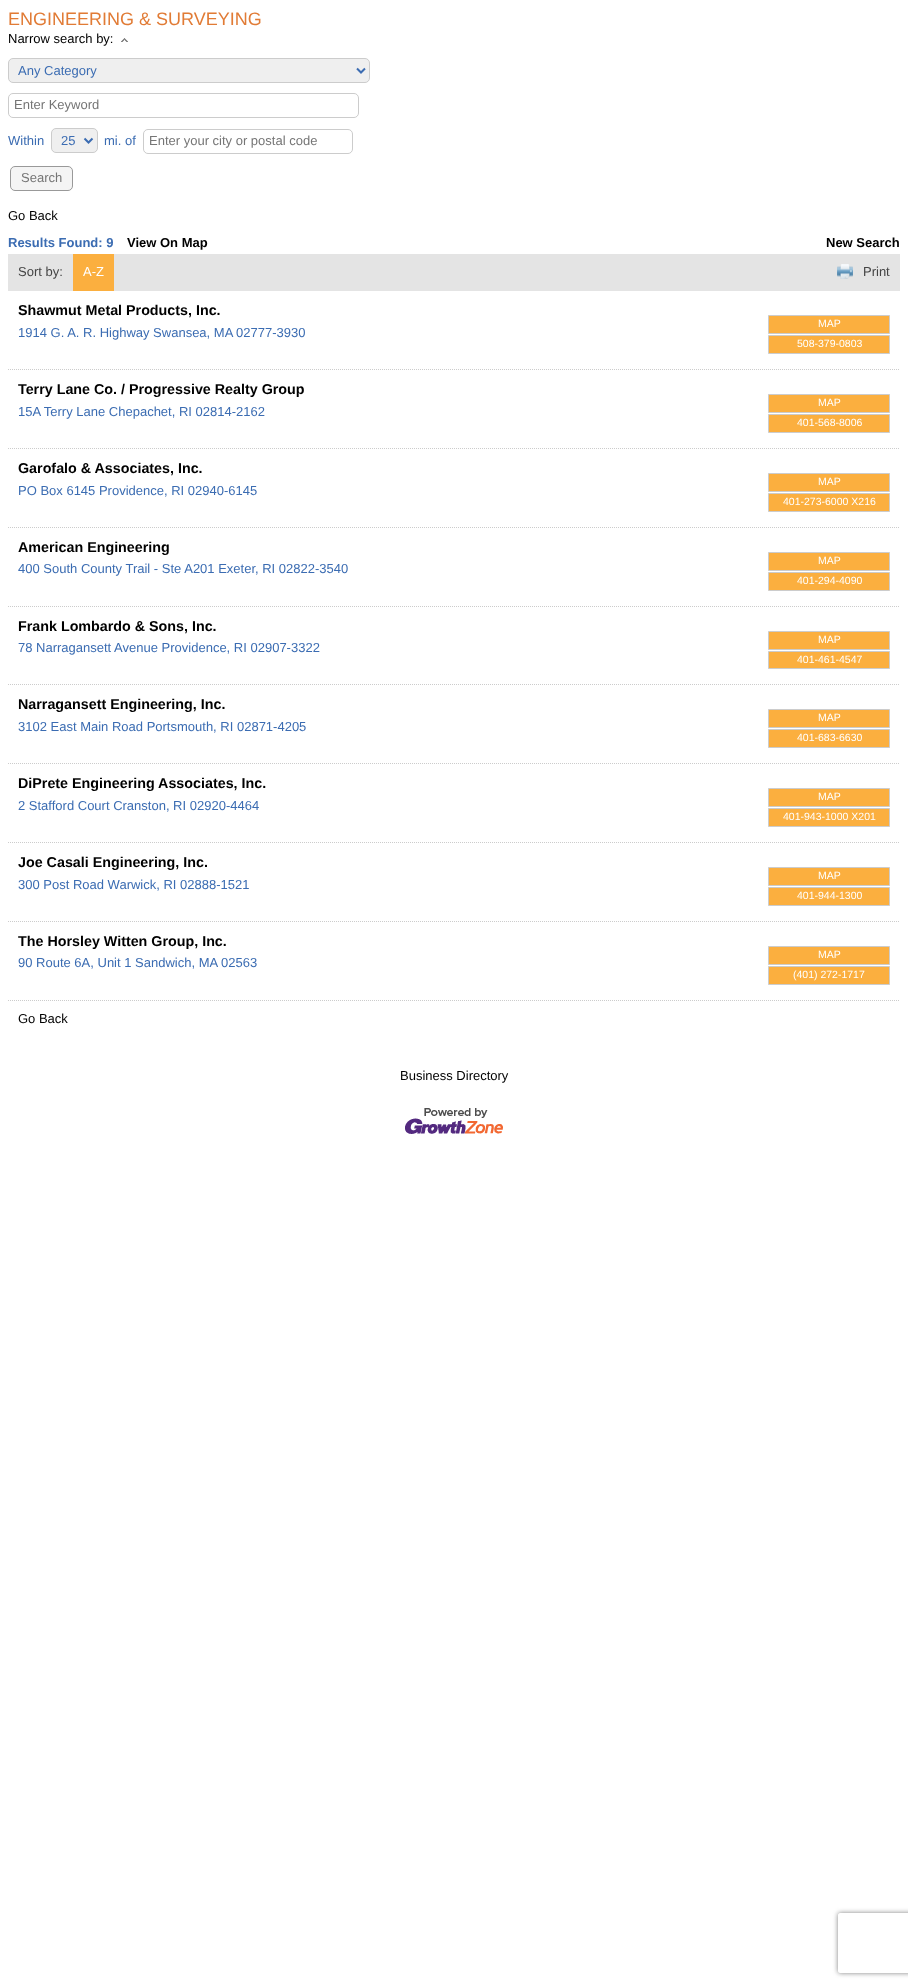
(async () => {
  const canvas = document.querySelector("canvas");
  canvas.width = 908;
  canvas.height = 1987;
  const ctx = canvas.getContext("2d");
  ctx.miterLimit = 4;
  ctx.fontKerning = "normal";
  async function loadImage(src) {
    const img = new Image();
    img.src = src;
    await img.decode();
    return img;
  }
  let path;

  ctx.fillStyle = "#ffffff";
  ctx.fillRect(0, 0, 908, 1987);
  ctx.drawImage(await loadImage("img/1.png"), 121, 38, 7, 4);
  ctx.fillStyle = "#efefef";
  ctx.beginPath();
  ctx.roundRect(8.5, 58.5, 361, 24, 4.5);
  ctx.fill();
  ctx.strokeStyle = "#cccccc";
  ctx.stroke();
  path = new Path2D("M357 68.5L361 72.5L365 68.5");
  ctx.strokeStyle = "#3b6cb2";
  ctx.lineWidth = 2;
  ctx.stroke(path);
  ctx.beginPath();
  ctx.roundRect(8.5, 93.5, 350, 24, 4.5);
  ctx.strokeStyle = "#cccccc";
  ctx.lineWidth = 1;
  ctx.stroke();
  ctx.beginPath();
  ctx.roundRect(51.5, 128.5, 46, 24, 4.5);
  ctx.fill();
  ctx.stroke();
  path = new Path2D("M84.5 138.5L88.5 142.5L92.5 138.5");
  ctx.strokeStyle = "#3b6cb2";
  ctx.lineWidth = 2;
  ctx.stroke(path);
  ctx.beginPath();
  ctx.roundRect(143.5, 129.5, 209, 24, 4.5);
  ctx.strokeStyle = "#cccccc";
  ctx.lineWidth = 1;
  ctx.stroke();
  ctx.fillStyle = "#f4f4f4";
  ctx.beginPath();
  ctx.roundRect(10.5, 166.5, 62, 24, 4.5);
  ctx.fill();
  ctx.strokeStyle = "#999999";
  ctx.stroke();
  ctx.fillStyle = "#e4e4e4";
  ctx.fillRect(8, 254, 892, 37);
  ctx.fillStyle = "#fbaf3f";
  ctx.fillRect(73, 254, 41, 37);
  ctx.drawImage(await loadImage("img/2.png"), 837, 264, 16, 15);
  path = new Path2D("M8 369.5H900");
  ctx.strokeStyle = "#cccccc";
  ctx.setLineDash([1, 1]);
  ctx.stroke(path);
  ctx.beginPath();
  ctx.rect(768.5, 315.5, 121, 18);
  ctx.fill();
  ctx.setLineDash([]);
  ctx.stroke();
  ctx.beginPath();
  ctx.rect(768.5, 335.5, 121, 18);
  ctx.fill();
  ctx.stroke();
  path = new Path2D("M8 448.5H900");
  ctx.setLineDash([1, 1]);
  ctx.stroke(path);
  ctx.beginPath();
  ctx.rect(768.5, 394.5, 121, 18);
  ctx.fill();
  ctx.setLineDash([]);
  ctx.stroke();
  ctx.beginPath();
  ctx.rect(768.5, 414.5, 121, 18);
  ctx.fill();
  ctx.stroke();
  path = new Path2D("M8 527.5H900");
  ctx.setLineDash([1, 1]);
  ctx.stroke(path);
  ctx.beginPath();
  ctx.rect(768.5, 473.5, 121, 18);
  ctx.fill();
  ctx.setLineDash([]);
  ctx.stroke();
  ctx.beginPath();
  ctx.rect(768.5, 493.5, 121, 18);
  ctx.fill();
  ctx.stroke();
  path = new Path2D("M8 606.5H900");
  ctx.setLineDash([1, 1]);
  ctx.stroke(path);
  ctx.beginPath();
  ctx.rect(768.5, 552.5, 121, 18);
  ctx.fill();
  ctx.setLineDash([]);
  ctx.stroke();
  ctx.beginPath();
  ctx.rect(768.5, 572.5, 121, 18);
  ctx.fill();
  ctx.stroke();
  path = new Path2D("M8 684.5H900");
  ctx.setLineDash([1, 1]);
  ctx.stroke(path);
  ctx.beginPath();
  ctx.rect(768.5, 631.5, 121, 18);
  ctx.fill();
  ctx.setLineDash([]);
  ctx.stroke();
  ctx.beginPath();
  ctx.rect(768.5, 651.5, 121, 17);
  ctx.fill();
  ctx.stroke();
  path = new Path2D("M8 763.5H900");
  ctx.setLineDash([1, 1]);
  ctx.stroke(path);
  ctx.beginPath();
  ctx.rect(768.5, 709.5, 121, 18);
  ctx.fill();
  ctx.setLineDash([]);
  ctx.stroke();
  ctx.beginPath();
  ctx.rect(768.5, 729.5, 121, 18);
  ctx.fill();
  ctx.stroke();
  path = new Path2D("M8 842.5H900");
  ctx.setLineDash([1, 1]);
  ctx.stroke(path);
  ctx.beginPath();
  ctx.rect(768.5, 788.5, 121, 18);
  ctx.fill();
  ctx.setLineDash([]);
  ctx.stroke();
  ctx.beginPath();
  ctx.rect(768.5, 808.5, 121, 18);
  ctx.fill();
  ctx.stroke();
  path = new Path2D("M8 921.5H900");
  ctx.setLineDash([1, 1]);
  ctx.stroke(path);
  ctx.beginPath();
  ctx.rect(768.5, 867.5, 121, 18);
  ctx.fill();
  ctx.setLineDash([]);
  ctx.stroke();
  ctx.beginPath();
  ctx.rect(768.5, 887.5, 121, 18);
  ctx.fill();
  ctx.stroke();
  path = new Path2D("M8 1000.5H900");
  ctx.setLineDash([1, 1]);
  ctx.stroke(path);
  ctx.beginPath();
  ctx.rect(768.5, 946.5, 121, 18);
  ctx.fill();
  ctx.setLineDash([]);
  ctx.stroke();
  ctx.beginPath();
  ctx.rect(768.5, 966.5, 121, 18);
  ctx.fill();
  ctx.stroke();
  ctx.drawImage(await loadImage("img/3.png"), 405, 1108, 98, 26);
  ctx.save();
  path = new Path2D("M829 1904H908V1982H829ZM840 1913H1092C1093 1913 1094 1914 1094 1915V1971C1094 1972 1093 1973 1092 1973H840C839 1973 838 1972 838 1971V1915C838 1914 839 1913 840 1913Z");
  ctx.clip(path, "evenodd");
  ctx.fillStyle = "#808080";
  ctx.filter = "blur(2.5px)";
  ctx.beginPath();
  ctx.roundRect(838, 1913, 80, 60, 2);
  ctx.fill();
  ctx.filter = "none";
  ctx.restore();
  ctx.font = "18px Liberation Sans";
  ctx.fillStyle = "#e17b35";
  ctx.fillText("ENGINEERING & SURVEYING", 8, 25);
  ctx.font = "13px Liberation Sans";
  ctx.fillStyle = "#000000";
  ctx.fillText("Narrow search by:", 8, 43);
  ctx.fillStyle = "#3b6cb2";
  ctx.fillText("Any Category", 18, 75);
  ctx.fillStyle = "#757575";
  ctx.fillText("Enter Keyword", 14, 109);
  ctx.fillStyle = "#3b6cb2";
  for (const [text, x, y] of [
    ["Within", 8, 145],
    ["25", 61, 145],
    ["mi. of", 104, 145],
  ]) {
    ctx.fillText(text, x, y);
  }
  ctx.fillStyle = "#757575";
  ctx.fillText("Enter your city or postal code", 149, 145);
  ctx.fillText("Search", 21, 182);
  ctx.fillStyle = "#000000";
  ctx.fillText("Go Back", 8, 220);
  ctx.font = "bold 13px Liberation Sans";
  ctx.fillStyle = "#3b6cb2";
  ctx.fillText("Results Found: 9", 8, 247);
  ctx.fillStyle = "#000000";
  ctx.fillText("View On Map", 127, 247);
  ctx.fillText("New Search", 826, 247);
  ctx.font = "13px Liberation Sans";
  ctx.fillStyle = "#444444";
  ctx.fillText("Sort by:", 18, 276);
  ctx.fillStyle = "#ffffff";
  ctx.fillText("A-Z", 83, 276);
  ctx.fillStyle = "#444444";
  ctx.fillText("Print", 863, 276);
  ctx.font = "bold 14.3px Liberation Sans";
  ctx.fillStyle = "#000000";
  ctx.fillText("Shawmut Metal Products, Inc.", 18, 315);
  ctx.font = "13px Liberation Sans";
  ctx.fillStyle = "#3b6cb2";
  ctx.fillText("1914 G. A. R. Highway Swansea, MA", 18, 337);
  ctx.fillText("02777-3930", 236, 337);
  ctx.font = "10.5px Liberation Sans";
  ctx.fillStyle = "#ffffff";
  ctx.fillText("MAP", 818, 327);
  ctx.fillText("508-379-0803", 797, 347);
  ctx.font = "bold 14.3px Liberation Sans";
  ctx.fillStyle = "#000000";
  ctx.fillText("Terry Lane Co. / Progressive Realty Group", 18, 394);
  ctx.font = "13px Liberation Sans";
  ctx.fillStyle = "#3b6cb2";
  ctx.fillText("15A Terry Lane Chepachet, RI 02814-2162", 18, 416);
  ctx.font = "10.5px Liberation Sans";
  ctx.fillStyle = "#ffffff";
  ctx.fillText("MAP", 818, 406);
  ctx.fillText("401-568-8006", 797, 426);
  ctx.font = "bold 14.3px Liberation Sans";
  ctx.fillStyle = "#000000";
  ctx.fillText("Garofalo & Associates, Inc.", 18, 473);
  ctx.font = "13px Liberation Sans";
  ctx.fillStyle = "#3b6cb2";
  ctx.fillText("PO Box 6145 Providence, RI 02940-6145", 18, 495);
  ctx.font = "10.5px Liberation Sans";
  ctx.fillStyle = "#ffffff";
  ctx.fillText("MAP", 818, 485);
  ctx.fillText("401-273-6000 X216", 783, 505);
  ctx.font = "bold 14.3px Liberation Sans";
  ctx.fillStyle = "#000000";
  ctx.fillText("American Engineering", 18, 552);
  ctx.font = "13px Liberation Sans";
  ctx.fillStyle = "#3b6cb2";
  ctx.fillText("400 South County Trail - Ste A201 Exeter", 18, 573);
  ctx.fillText(", RI 02822-3540", 255, 573);
  ctx.font = "10.5px Liberation Sans";
  ctx.fillStyle = "#ffffff";
  ctx.fillText("MAP", 818, 564);
  ctx.fillText("401-294-4090", 797, 584);
  ctx.font = "bold 14.3px Liberation Sans";
  ctx.fillStyle = "#000000";
  ctx.fillText("Frank Lombardo & Sons, Inc.", 18, 631);
  ctx.font = "13px Liberation Sans";
  ctx.fillStyle = "#3b6cb2";
  ctx.fillText("78 Narragansett Avenue Providence, RI 02907-3322", 18, 652);
  ctx.font = "10.5px Liberation Sans";
  ctx.fillStyle = "#ffffff";
  ctx.fillText("MAP", 818, 643);
  ctx.fillText("401-461-4547", 797, 663);
  ctx.font = "bold 14.3px Liberation Sans";
  ctx.fillStyle = "#000000";
  ctx.fillText("Narragansett Engineering, Inc.", 18, 709);
  ctx.font = "13px Liberation Sans";
  ctx.fillStyle = "#3b6cb2";
  ctx.fillText("3102 East Main Road Portsmouth, RI 02871-4205", 18, 731);
  ctx.font = "10.5px Liberation Sans";
  ctx.fillStyle = "#ffffff";
  ctx.fillText("MAP", 818, 721);
  ctx.fillText("401-683-6630", 797, 741);
  ctx.font = "bold 14.3px Liberation Sans";
  ctx.fillStyle = "#000000";
  ctx.fillText("DiPrete Engineering Associates, Inc.", 18, 788);
  ctx.font = "13px Liberation Sans";
  ctx.fillStyle = "#3b6cb2";
  ctx.fillText("2 Stafford Court Cranston, RI 02920-4464", 18, 810);
  ctx.font = "10.5px Liberation Sans";
  ctx.fillStyle = "#ffffff";
  ctx.fillText("MAP", 818, 800);
  ctx.fillText("401-943-1000 X201", 783, 820);
  ctx.font = "bold 14.3px Liberation Sans";
  ctx.fillStyle = "#000000";
  ctx.fillText("Joe Casali Engineering, Inc.", 18, 867);
  ctx.font = "13px Liberation Sans";
  ctx.fillStyle = "#3b6cb2";
  ctx.fillText("300 Post Road Warwick, RI 02888-1521", 18, 889);
  ctx.font = "10.5px Liberation Sans";
  ctx.fillStyle = "#ffffff";
  ctx.fillText("MAP", 818, 879);
  ctx.fillText("401-944-1300", 797, 899);
  ctx.font = "bold 14.3px Liberation Sans";
  ctx.fillStyle = "#000000";
  ctx.fillText("The Horsley Witten Group, Inc.", 18, 946);
  ctx.font = "13px Liberation Sans";
  ctx.fillStyle = "#3b6cb2";
  ctx.fillText("90 Route 6A, Unit 1 Sandwich, MA", 18, 967);
  ctx.fillText("02563", 221, 967);
  ctx.font = "10.5px Liberation Sans";
  ctx.fillStyle = "#ffffff";
  ctx.fillText("MAP", 818, 958);
  ctx.fillText("(401) 272-1717", 793, 978);
  ctx.font = "13px Liberation Sans";
  ctx.fillStyle = "#000000";
  ctx.fillText("Go Back", 18, 1023);
  ctx.fillText("Business Directory", 400, 1080);
})();
